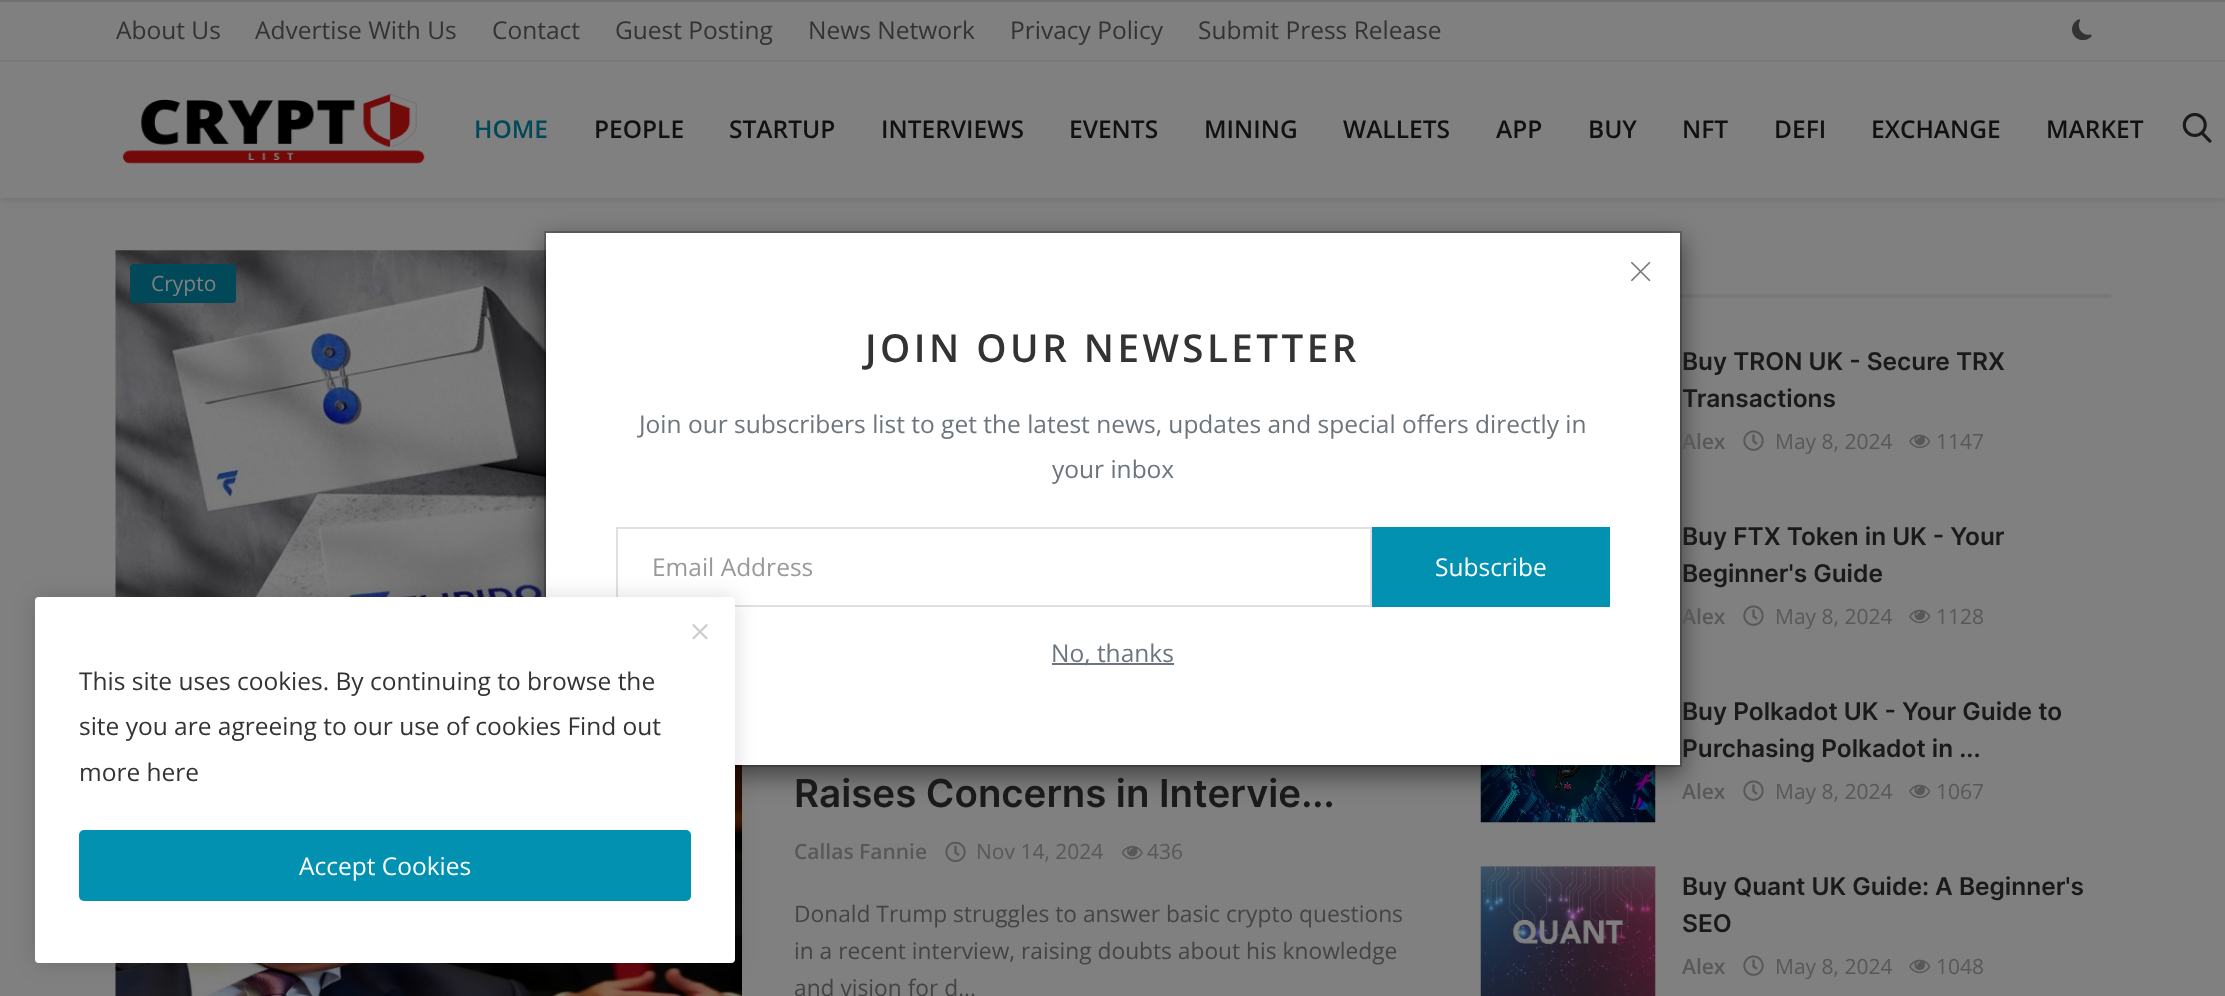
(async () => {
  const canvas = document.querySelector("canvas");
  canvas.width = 2225;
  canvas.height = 996;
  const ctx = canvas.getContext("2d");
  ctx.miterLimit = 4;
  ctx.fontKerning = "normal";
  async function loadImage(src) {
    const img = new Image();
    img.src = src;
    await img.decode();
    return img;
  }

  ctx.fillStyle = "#808080";
  ctx.fillRect(0, 0, 2225, 996);
  ctx.fillStyle = "#727272";
  ctx.filter = "blur(3.5px)";
  ctx.beginPath();
  ctx.rect(0, 2, 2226, 198);
  ctx.fill();
  ctx.filter = "none";
  for (const [x, y, w, h, color] of [
    [0, 0, 2225, 2, "#727272"],
    [0, 2, 2225, 196, "#808080"],
    [0, 60, 2225, 2, "#787878"],
  ]) {
    ctx.fillStyle = color;
    ctx.fillRect(x, y, w, h);
  }
  ctx.drawImage(await loadImage("img/1.png"), 2072, 19, 20, 21);
  ctx.drawImage(await loadImage("img/2.png"), 122, 94, 303, 70);
  ctx.drawImage(await loadImage("img/3.png"), 2182, 113, 30, 30);
  ctx.drawImage(await loadImage("img/4.png"), 115, 250, 431, 347);
  ctx.fillStyle = "#014959";
  ctx.beginPath();
  ctx.roundRect(130, 264, 106, 39, 4);
  ctx.fill();
  ctx.drawImage(await loadImage("img/5.png"), 115, 765, 627, 231);
  ctx.drawImage(await loadImage("img/6.png"), 945, 841, 21, 22);
  ctx.drawImage(await loadImage("img/7.png"), 1121, 845, 22, 15);
  ctx.fillStyle = "#797979";
  ctx.fillRect(1680, 294, 431, 4);
  ctx.drawImage(await loadImage("img/8.png"), 1743, 430, 21, 21);
  ctx.drawImage(await loadImage("img/9.png"), 1909, 434, 22, 15);
  ctx.drawImage(await loadImage("img/8.png"), 1743, 605, 21, 21);
  ctx.drawImage(await loadImage("img/9.png"), 1909, 609, 22, 15);
  ctx.fillStyle = "#7d7d7d";
  ctx.fillRect(1481, 765, 175, 58);
  ctx.drawImage(await loadImage("img/10.png"), 1480, 765, 176, 58);
  ctx.drawImage(await loadImage("img/8.png"), 1743, 780, 21, 21);
  ctx.drawImage(await loadImage("img/9.png"), 1909, 784, 22, 15);
  ctx.fillRect(1481, 866, 175, 130);
  ctx.drawImage(await loadImage("img/11.png"), 1480, 866, 176, 130);
  ctx.drawImage(await loadImage("img/8.png"), 1743, 955, 21, 21);
  ctx.drawImage(await loadImage("img/9.png"), 1909, 959, 22, 15);
  ctx.fillStyle = "rgba(0, 0, 0, 0.5)";
  ctx.filter = "blur(13px)";
  ctx.beginPath();
  ctx.rect(544, 240, 1138, 535);
  ctx.fill();
  ctx.filter = "none";
  ctx.fillStyle = "#ffffff";
  ctx.fillRect(546, 233, 1134, 532);
  ctx.font = "24.5px Open Sans";
  ctx.fillStyle = "#333333";
  for (const [text, x, y] of [
    ["About Us", 116, 39],
    ["Advertise With Us", 255, 39],
    ["Contact", 492, 39],
    ["Guest Posting", 615, 39],
    ["News Network", 808, 39],
    ["Privacy Policy", 1010, 39],
    ["Submit Press Release", 1198, 39],
  ]) {
    ctx.fillText(text, x, y);
  }
  ctx.font = "600 24.5px Open Sans";
  ctx.fillStyle = "#014959";
  ctx.fillText("HOME", 474, 138);
  ctx.fillStyle = "#111111";
  for (const [text, x, y] of [
    ["PEOPLE", 594, 138],
    ["STARTUP", 729, 138],
    ["INTERVIEWS", 881, 138],
    ["EVENTS", 1069, 138],
    ["MINING", 1204, 138],
    ["WALLETS", 1343, 138],
    ["APP", 1496, 138],
    ["BUY", 1588, 138],
    ["NFT", 1682, 138],
    ["DEFI", 1774, 138],
    ["EXCHANGE", 1871, 138],
    ["MARKET", 2046, 138],
  ]) {
    ctx.fillText(text, x, y);
  }
  ctx.font = "21px Open Sans";
  ctx.fillStyle = "#808080";
  ctx.fillText("Crypto", 151, 291);
  ctx.font = "600 38.5px Inter";
  ctx.fillStyle = "#1a1a1a";
  ctx.fillText("Raises Concerns in Intervie...", 794, 807);
  ctx.font = "600 21px Open Sans";
  ctx.fillStyle = "#585858";
  ctx.fillText("Callas Fannie", 794, 859);
  ctx.font = "21px Open Sans";
  ctx.fillText("Nov 14, 2024", 976, 859);
  ctx.fillText("436", 1147, 859);
  ctx.font = "22.75px Open Sans";
  ctx.fillStyle = "#444444";
  for (const [text, x, y] of [
    ["Donald Trump struggles to answer basic crypto questions", 794, 922],
    ["in a recent interview, raising doubts about his knowledge", 794, 959],
    ["and vision for d...", 794, 996],
  ]) {
    ctx.fillText(text, x, y);
  }
  ctx.font = "600 24.5px Inter";
  ctx.fillStyle = "#1a1a1a";
  ctx.fillText("Buy TRON UK - Secure TRX", 1682, 370);
  ctx.fillText("Transactions", 1682, 407);
  ctx.font = "600 21px Open Sans";
  ctx.fillStyle = "#585858";
  ctx.fillText("Alex", 1682, 449);
  ctx.font = "21px Open Sans";
  ctx.fillText("May 8, 2024", 1775, 449);
  ctx.fillText("1147", 1936, 449);
  ctx.font = "600 24.5px Inter";
  ctx.fillStyle = "#1a1a1a";
  ctx.fillText("Buy FTX Token in UK - Your", 1682, 545);
  ctx.fillText("Beginner's Guide", 1682, 582);
  ctx.font = "600 21px Open Sans";
  ctx.fillStyle = "#585858";
  ctx.fillText("Alex", 1682, 624);
  ctx.font = "21px Open Sans";
  ctx.fillText("May 8, 2024", 1775, 624);
  ctx.fillText("1128", 1936, 624);
  ctx.font = "600 24.5px Inter";
  ctx.fillStyle = "#1a1a1a";
  ctx.fillText("Buy Polkadot UK - Your Guide to", 1682, 720);
  ctx.fillText("Purchasing Polkadot in ...", 1682, 757);
  ctx.font = "600 21px Open Sans";
  ctx.fillStyle = "#585858";
  ctx.fillText("Alex", 1682, 799);
  ctx.font = "21px Open Sans";
  ctx.fillText("May 8, 2024", 1775, 799);
  ctx.fillText("1067", 1936, 799);
  ctx.font = "600 24.5px Inter";
  ctx.fillStyle = "#1a1a1a";
  ctx.fillText("Buy Quant UK Guide: A Beginner's", 1682, 895);
  ctx.fillText("SEO", 1682, 932);
  ctx.font = "600 21px Open Sans";
  ctx.fillStyle = "#585858";
  ctx.fillText("Alex", 1682, 974);
  ctx.font = "21px Open Sans";
  ctx.fillText("May 8, 2024", 1775, 974);
  ctx.fillText("1048", 1936, 974);
  ctx.strokeStyle = "rgba(0, 0, 0, 0.2)";
  ctx.lineWidth = 2;
  ctx.strokeRect(545, 232, 1136, 534);
  ctx.drawImage(await loadImage("img/12.png"), 1631, 261, 20, 21);
  ctx.letterSpacing = "3.5px";
  ctx.font = "600 38.5px Open Sans";
  ctx.fillStyle = "#333333";
  ctx.fillText("JOIN OUR NEWSLETTER", 865, 362);
  ctx.letterSpacing = "0px";
  ctx.font = "24.5px Open Sans";
  ctx.fillStyle = "#6c757d";
  ctx.fillText("Join our subscribers list to get the latest news, updates and special offers directly in", 639, 433);
  ctx.fillText("your inbox", 1052, 478);
  ctx.strokeStyle = "#dfe0e6";
  ctx.strokeRect(617, 528, 754, 78);
  ctx.fillStyle = "#999999";
  ctx.fillText("Email Address", 652, 576);
  ctx.fillStyle = "#0291b1";
  ctx.fillRect(1372, 527, 238, 80);
  ctx.fillStyle = "#ffffff";
  ctx.fillText("Subscribe", 1435, 576);
  ctx.fillStyle = "#6c757d";
  ctx.fillRect(1052, 663, 122, 2);
  ctx.fillText("No, thanks", 1051, 662);
  ctx.fillStyle = "rgba(0, 0, 0, 0.14)";
  ctx.filter = "blur(10.5px)";
  ctx.beginPath();
  ctx.roundRect(35, 597, 700, 366, 4);
  ctx.fill();
  ctx.filter = "none";
  ctx.fillStyle = "#ffffff";
  ctx.beginPath();
  ctx.roundRect(35, 597, 700, 366, 4);
  ctx.fill();
  ctx.drawImage(await loadImage("img/13.png"), 692, 624, 16, 16);
  ctx.fillStyle = "#333333";
  for (const [text, x, y] of [
    ["This site uses cookies. By continuing to browse the", 79, 690],
    ["site you are agreeing to our use of cookies Find out", 79, 735],
    ["more here", 79, 781],
  ]) {
    ctx.fillText(text, x, y);
  }
  ctx.fillStyle = "#0291b1";
  ctx.beginPath();
  ctx.roundRect(79, 830, 612, 71, 5);
  ctx.fill();
  ctx.fillStyle = "#ffffff";
  ctx.fillText("Accept Cookies", 299, 875);
})();
